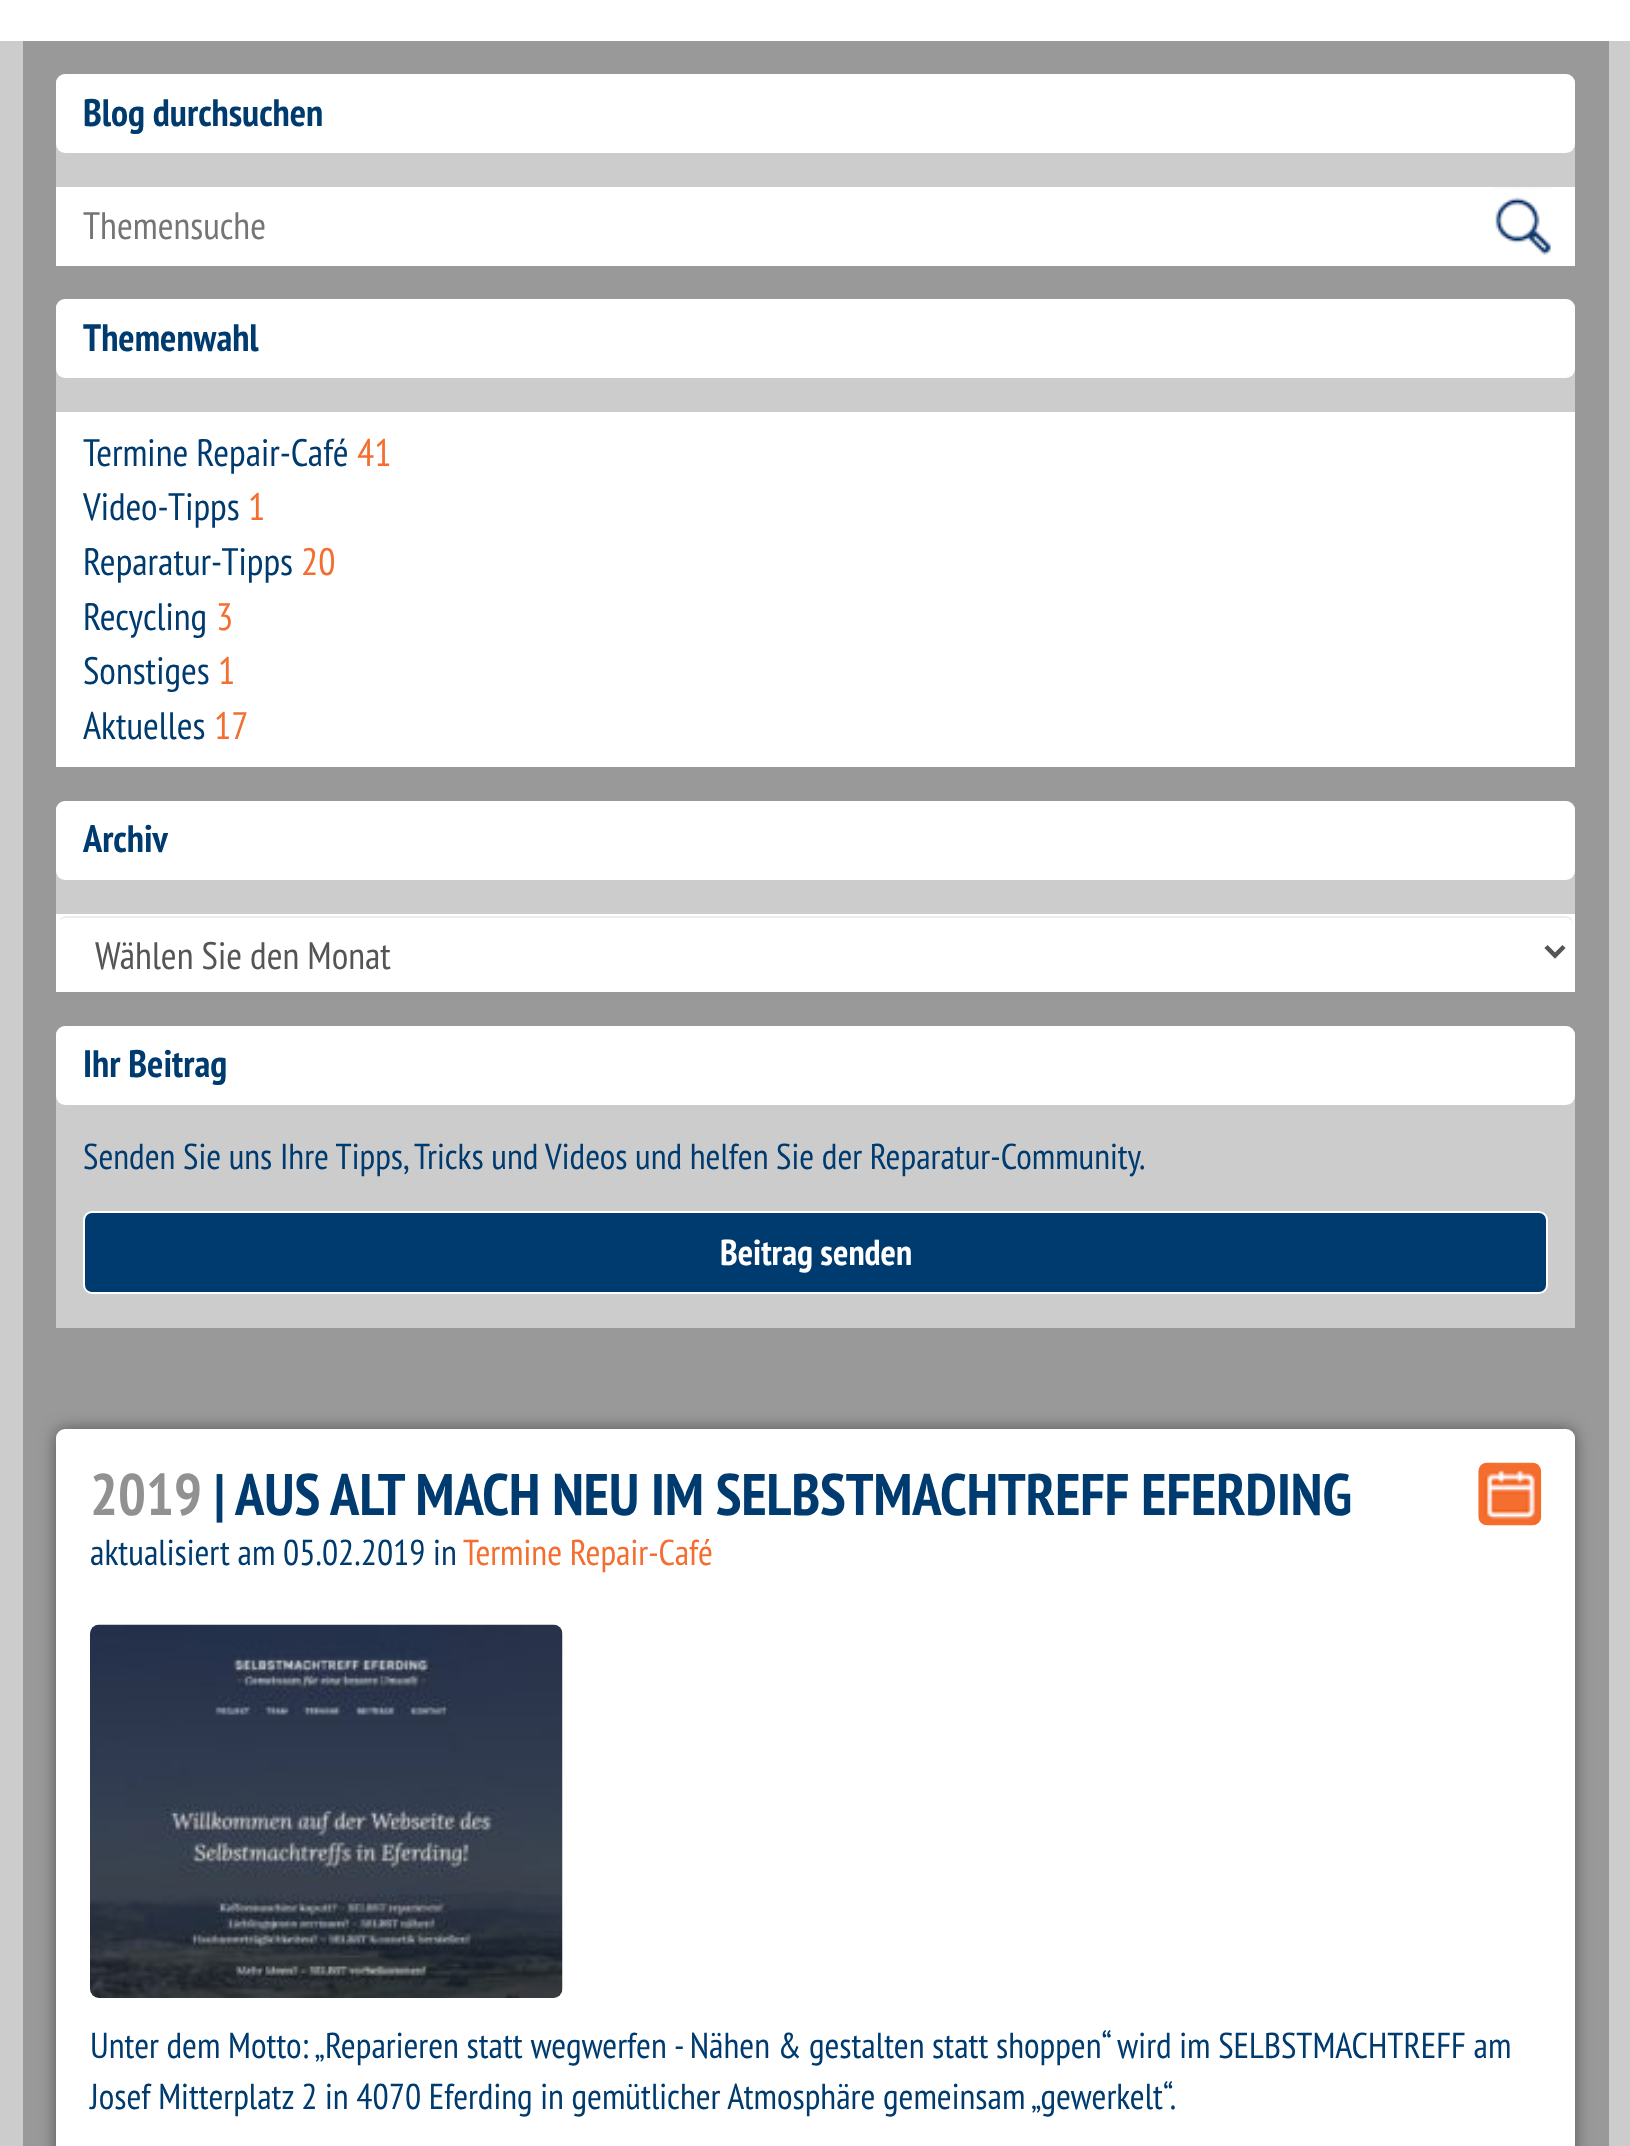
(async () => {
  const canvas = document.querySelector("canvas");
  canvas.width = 1630;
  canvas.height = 2146;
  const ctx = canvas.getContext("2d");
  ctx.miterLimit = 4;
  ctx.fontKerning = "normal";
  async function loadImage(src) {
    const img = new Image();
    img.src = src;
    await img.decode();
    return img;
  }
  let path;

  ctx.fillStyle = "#ffffff";
  ctx.fillRect(0, 0, 1630, 2146);
  ctx.fillStyle = "#cccccc";
  ctx.fillRect(0, 41, 1630, 2105);
  ctx.fillStyle = "#999999";
  ctx.fillRect(23, 41, 1586, 2105);
  ctx.fillStyle = "#cccccc";
  ctx.beginPath();
  ctx.roundRect(56, 74, 1519, 192, [9, 9, 0, 0]);
  ctx.fill();
  ctx.fillStyle = "#ffffff";
  ctx.beginPath();
  ctx.roundRect(56, 74, 1519, 79, 9);
  ctx.fill();
  ctx.fillRect(56, 187, 1519, 79);
  ctx.drawImage(await loadImage("img/1.png"), 1494, 187, 57, 68);
  ctx.fillStyle = "#cccccc";
  ctx.beginPath();
  ctx.roundRect(56, 299, 1519, 468, [9, 9, 0, 0]);
  ctx.fill();
  ctx.fillStyle = "#ffffff";
  ctx.beginPath();
  ctx.roundRect(56, 299, 1519, 79, 9);
  ctx.fill();
  ctx.fillRect(56, 412, 1519, 355);
  ctx.fillStyle = "#cccccc";
  ctx.beginPath();
  ctx.roundRect(56, 801, 1519, 191, [9, 9, 0, 0]);
  ctx.fill();
  ctx.fillStyle = "#ffffff";
  ctx.beginPath();
  ctx.roundRect(56, 801, 1519, 79, 9);
  ctx.fill();
  ctx.fillRect(56, 914, 1519, 78);
  ctx.fillStyle = "#ececec";
  path = new Path2D("M65 918H1566C1570 918 1573 921 1573 925V923C1573 919 1570 916 1566 916H66C63 916 60 918 59 921C61 919 63 918 65 918Z");
  ctx.fill(path);
  ctx.beginPath();
  ctx.roundRect(57, 915, 1517, 74, 8);
  ctx.strokeStyle = "#ffffff";
  ctx.lineWidth = 2;
  ctx.stroke();
  path = new Path2D("M1546 946.5L1555 955.5L1564 946.5");
  ctx.strokeStyle = "#555555";
  ctx.lineWidth = 4.5;
  ctx.stroke(path);
  ctx.fillStyle = "#cccccc";
  ctx.beginPath();
  ctx.roundRect(56, 1026, 1519, 302, [9, 9, 0, 0]);
  ctx.fill();
  ctx.fillStyle = "#ffffff";
  ctx.beginPath();
  ctx.roundRect(56, 1026, 1519, 79, 9);
  ctx.fill();
  ctx.fillStyle = "#003b6f";
  ctx.beginPath();
  ctx.roundRect(84, 1212, 1463, 81, 8);
  ctx.fill();
  ctx.strokeStyle = "#ffffff";
  ctx.lineWidth = 2;
  ctx.stroke();
  ctx.fillStyle = "#555555";
  ctx.filter = "blur(8px)";
  ctx.beginPath();
  ctx.roundRect(56, 1429, 1519, 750, 9);
  ctx.fill();
  ctx.filter = "none";
  ctx.fillStyle = "#ffffff";
  ctx.beginPath();
  ctx.roundRect(56, 1429, 1519, 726, 9);
  ctx.fill();
  ctx.drawImage(await loadImage("img/2.png"), 1478, 1462, 64, 64);
  ctx.drawImage(await loadImage("img/3.png"), 90, 1624, 473, 374);
  ctx.font = "bold 38.25px PT Sans Narrow";
  ctx.fillStyle = "#003b6f";
  ctx.fillText("Blog durchsuchen", 83, 126);
  ctx.font = "38.25px PT Sans Narrow";
  ctx.fillStyle = "#757575";
  ctx.fillText("Themensuche", 83, 239);
  ctx.font = "bold 38.25px PT Sans Narrow";
  ctx.fillStyle = "#003b6f";
  ctx.fillText("Themenwahl", 83, 351);
  ctx.font = "38.25px PT Sans Narrow";
  ctx.fillText("Termine Repair-Café", 83, 466);
  ctx.fillStyle = "#f46e2f";
  ctx.fillText("41", 357, 466);
  ctx.fillStyle = "#003b6f";
  ctx.fillText("Video-Tipps", 83, 520);
  ctx.fillStyle = "#f46e2f";
  ctx.fillText("1", 248, 520);
  ctx.fillStyle = "#003b6f";
  ctx.fillText("Reparatur-Tipps", 83, 575);
  ctx.fillStyle = "#f46e2f";
  ctx.fillText("20", 301, 575);
  ctx.fillStyle = "#003b6f";
  ctx.fillText("Recycling", 83, 630);
  ctx.fillStyle = "#f46e2f";
  ctx.fillText("3", 216, 630);
  ctx.fillStyle = "#003b6f";
  ctx.fillText("Sonstiges", 83, 684);
  ctx.fillStyle = "#f46e2f";
  ctx.fillText("1", 218, 684);
  ctx.fillStyle = "#003b6f";
  ctx.fillText("Aktuelles", 83, 739);
  ctx.fillStyle = "#f46e2f";
  ctx.fillText("17", 214, 739);
  ctx.font = "bold 38.25px PT Sans Narrow";
  ctx.fillStyle = "#003b6f";
  ctx.fillText("Archiv", 83, 852);
  ctx.font = "38.25px PT Sans Narrow";
  ctx.fillStyle = "#555555";
  ctx.fillText("Wählen Sie den Monat", 95, 969);
  ctx.font = "bold 38.25px PT Sans Narrow";
  ctx.fillStyle = "#003b6f";
  ctx.fillText("Ihr Beitrag", 83, 1077);
  ctx.font = "36px PT Sans Narrow";
  ctx.fillText("Senden Sie uns Ihre Tipps, Tricks und Videos und helfen Sie der Reparatur-Community.", 83, 1169);
  ctx.font = "bold 36px PT Sans Narrow";
  ctx.fillStyle = "#ffffff";
  ctx.fillText("Beitrag senden", 720, 1265);
  ctx.font = "bold 58.5px PT Sans Narrow";
  ctx.fillStyle = "#919191";
  ctx.fillText("2019", 90, 1515);
  ctx.fillStyle = "#003b6f";
  ctx.fillText("| AUS ALT MACH NEU IM SELBSTMACHTREFF EFERDING", 214, 1515);
  ctx.font = "36px PT Sans Narrow";
  ctx.fillText("aktualisiert am 05.02.2019 in", 90, 1565);
  ctx.fillStyle = "#f46e2f";
  ctx.fillText("Termine Repair-Café", 463, 1565);
  ctx.fillStyle = "#003b6f";
  ctx.fillText("Unter dem Motto: „Reparieren statt wegwerfen - Nähen & gestalten statt shoppen“ wird im SELBSTMACHTREFF am", 90, 2058);
  ctx.fillText("Josef Mitterplatz 2 in 4070 Eferding in gemütlicher Atmosphäre gemeinsam „gewerkelt“.", 90, 2109);
})();
